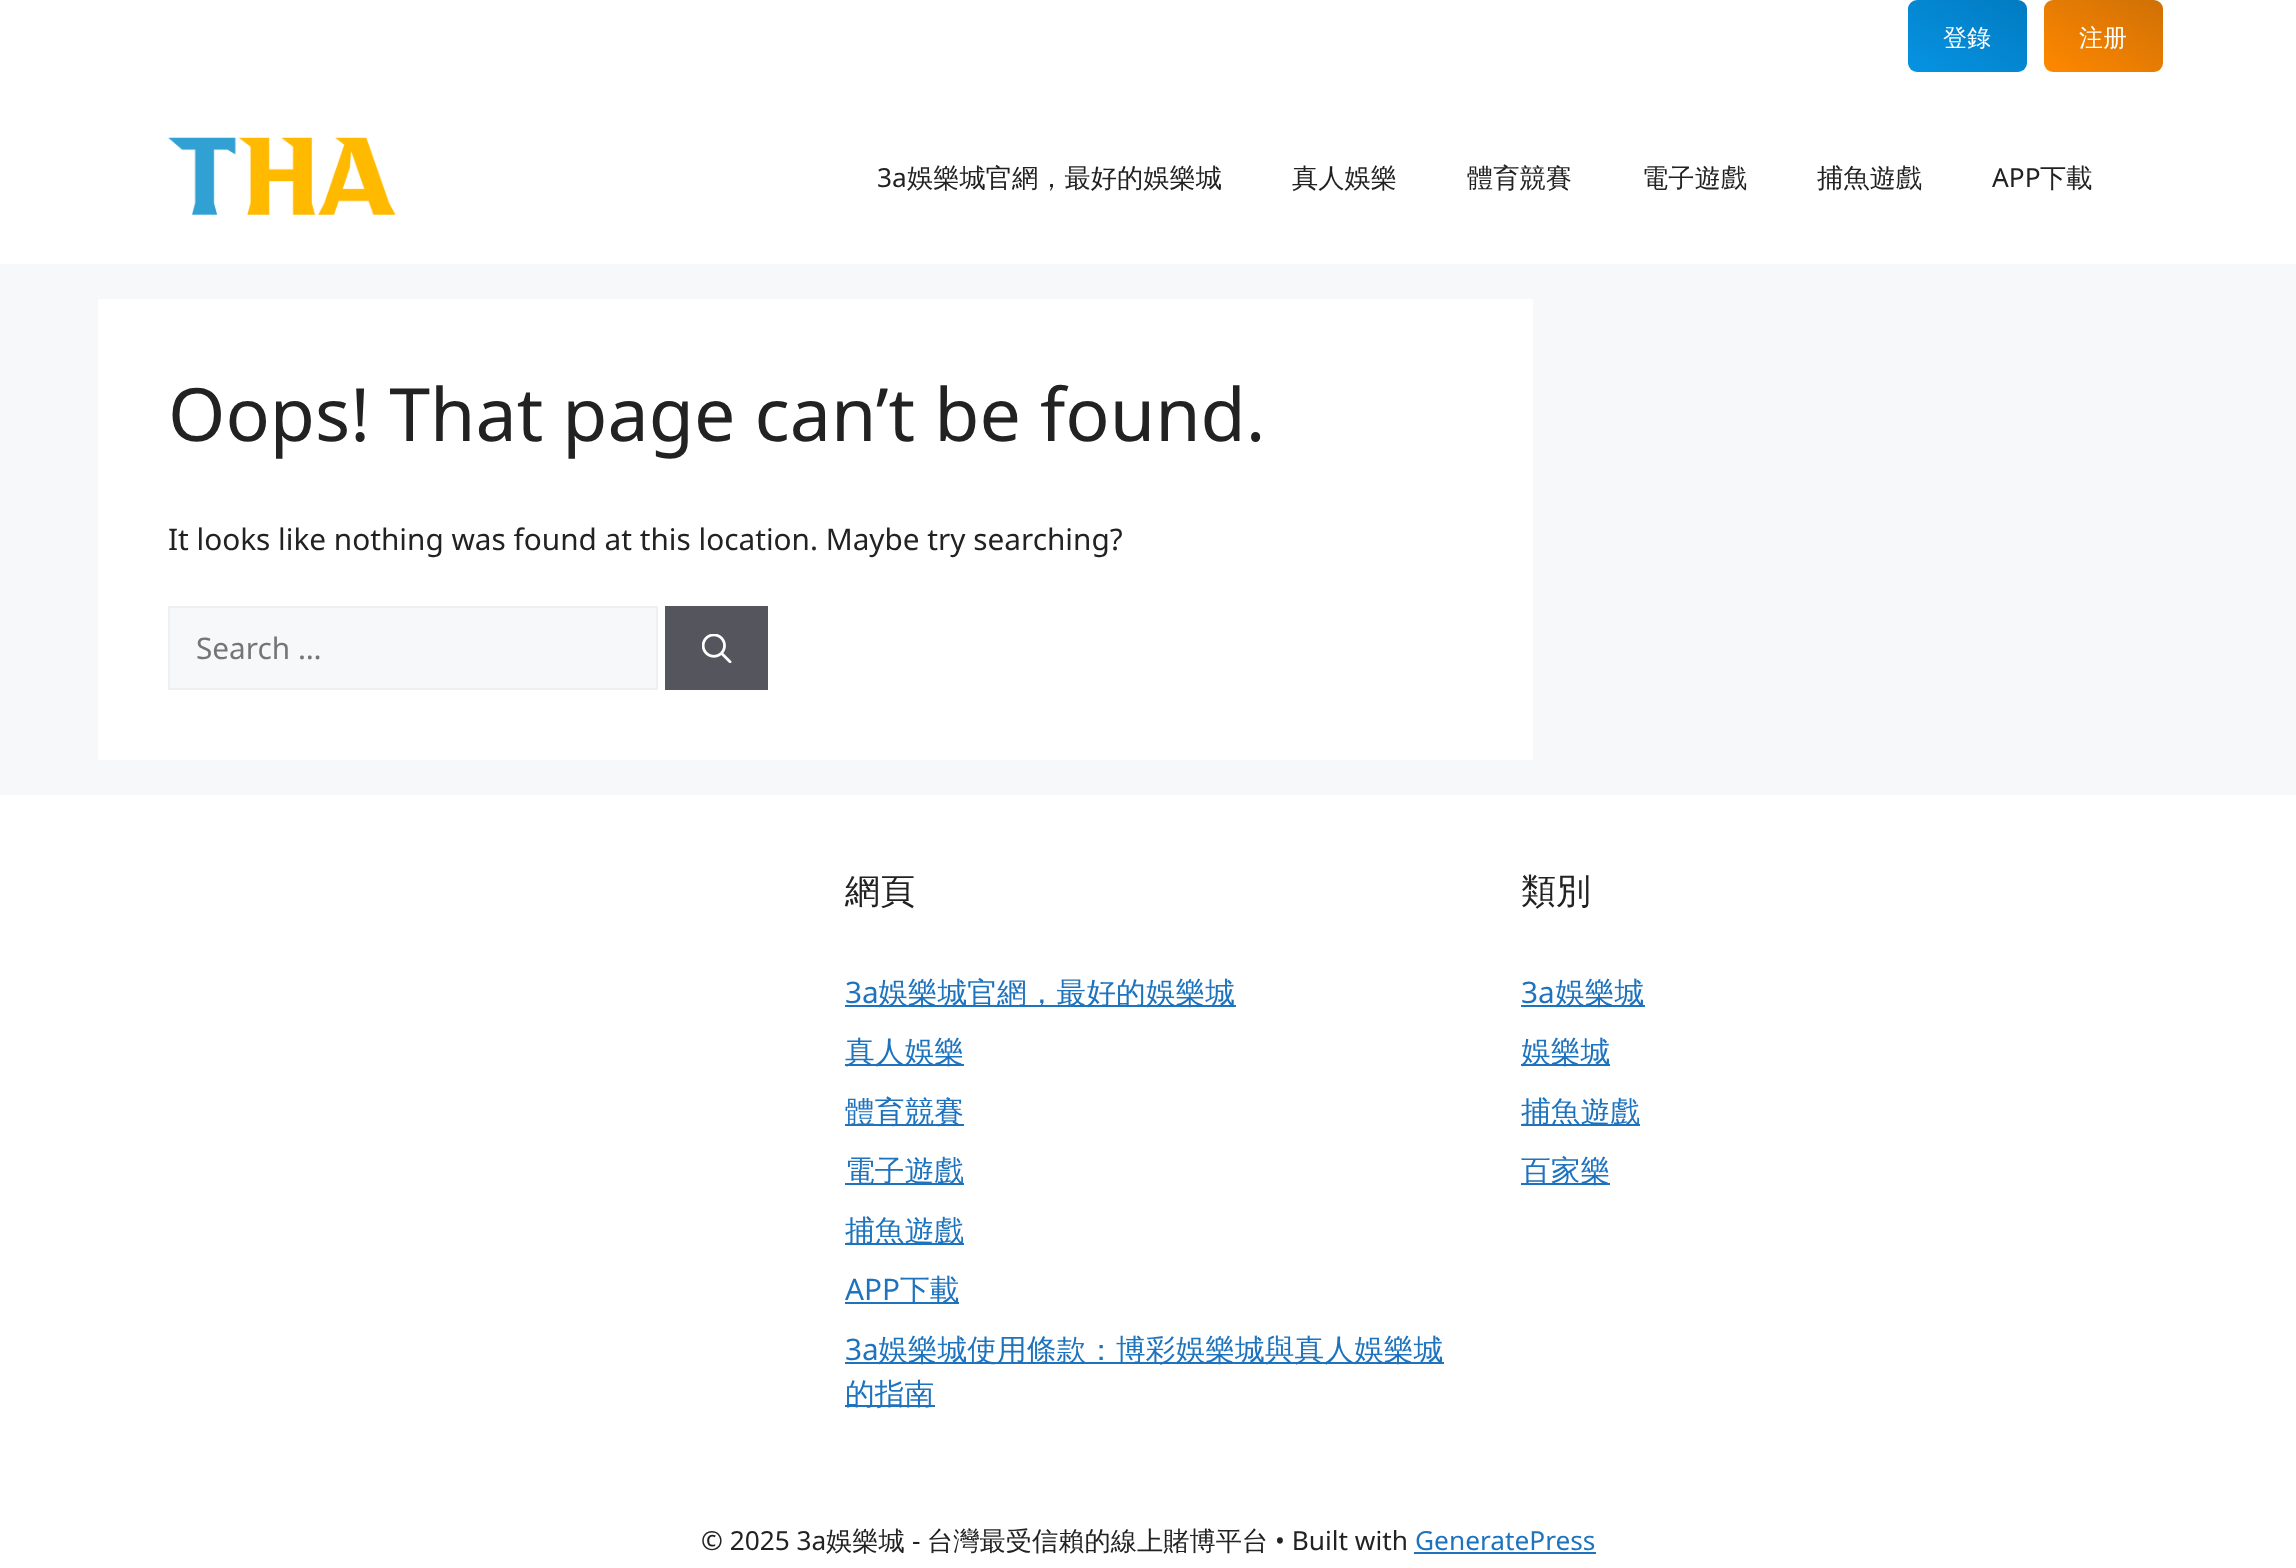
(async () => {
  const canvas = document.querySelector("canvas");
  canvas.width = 2296;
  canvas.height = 1568;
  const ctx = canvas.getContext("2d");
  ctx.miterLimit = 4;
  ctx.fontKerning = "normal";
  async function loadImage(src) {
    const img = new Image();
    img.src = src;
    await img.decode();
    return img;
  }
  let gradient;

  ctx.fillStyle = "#f7f8f9";
  ctx.fillRect(0, 0, 2296, 1568);
  ctx.fillStyle = "#ffffff";
  ctx.fillRect(0, 0, 2296, 264);
  gradient = ctx.createLinearGradient(1935, 88, 1999, -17);
  gradient.addColorStop(0, "#0693e3");
  gradient.addColorStop(0.25, "#058dda");
  gradient.addColorStop(0.5, "#0487d2");
  gradient.addColorStop(0.75, "#0281c9");
  gradient.addColorStop(1, "#017bc1");
  ctx.fillStyle = gradient;
  ctx.beginPath();
  ctx.roundRect(1908, 0, 119, 72, 9);
  ctx.fill();
  gradient = ctx.createLinearGradient(2072, 88, 2135, -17);
  gradient.addColorStop(0, "#ff8800");
  gradient.addColorStop(0.25, "#f38201");
  gradient.addColorStop(0.5, "#e77c03");
  gradient.addColorStop(0.75, "#db7604");
  gradient.addColorStop(1, "#cf7005");
  ctx.fillStyle = gradient;
  ctx.beginPath();
  ctx.roundRect(2044, 0, 119, 72, 9);
  ctx.fill();
  ctx.drawImage(await loadImage("img/1.png"), 168, 137, 228, 78);
  ctx.fillStyle = "#ffffff";
  ctx.fillRect(98, 299, 1435, 461);
  ctx.fillStyle = "#f7f8f9";
  ctx.beginPath();
  ctx.rect(169, 607, 488, 82);
  ctx.fill();
  ctx.strokeStyle = "#f0f0f0";
  ctx.lineWidth = 2;
  ctx.stroke();
  ctx.fillStyle = "#55555e";
  ctx.fillRect(665, 606, 103, 84);
  ctx.drawImage(await loadImage("img/2.png"), 702, 634, 30, 29);
  for (const [x, y, w, h, color] of [
    [0, 795, 2296, 773, "#ffffff"],
    [845, 1005, 391, 2, "#1e73be"],
    [845, 1064, 119, 2, "#1e73be"],
    [845, 1124, 119, 2, "#1e73be"],
    [845, 1183, 119, 2, "#1e73be"],
    [845, 1243, 119, 2, "#1e73be"],
    [845, 1302, 114, 2, "#1e73be"],
    [845, 1362, 599, 2, "#1e73be"],
    [845, 1405, 90, 2, "#1e73be"],
    [1521, 1005, 124, 2, "#1e73be"],
    [1521, 1064, 89, 2, "#1e73be"],
    [1521, 1124, 119, 2, "#1e73be"],
    [1521, 1183, 89, 2, "#1e73be"],
    [1414, 1552, 182, 2, "#1e73be"],
  ]) {
    ctx.fillStyle = color;
    ctx.fillRect(x, y, w, h);
  }
  ctx.font = "500 24px WenQuanYi Zen Hei";
  ctx.fillStyle = "#ffffff";
  ctx.fillText("登錄", 1943, 46);
  ctx.fillText("注册", 2079, 46);
  ctx.font = "26.25px Noto Sans";
  ctx.fillStyle = "#222222";
  ctx.fillText("3a", 877, 187);
  ctx.font = "500 26.25px WenQuanYi Zen Hei";
  for (const [text, x, y] of [
    ["娛樂城官網，最好的娛樂城", 907, 187],
    ["真人娛樂", 1292, 187],
    ["體育競賽", 1467, 187],
    ["電子遊戲", 1642, 187],
    ["捕魚遊戲", 1817, 187],
  ]) {
    ctx.fillText(text, x, y);
  }
  ctx.font = "26.25px Noto Sans";
  ctx.fillText("APP", 1992, 187);
  ctx.font = "500 26.25px WenQuanYi Zen Hei";
  ctx.fillText("下載", 2040, 187);
  ctx.font = "73.5px Noto Sans";
  ctx.fillText("Oops! That page can’t be found.", 168, 441);
  ctx.font = "29.75px Noto Sans";
  ctx.fillText("It looks like nothing was found at this location. Maybe try searching?", 168, 550);
  ctx.fillStyle = "#757575";
  ctx.fillText("Search …", 196, 659);
  ctx.font = "500 35px WenQuanYi Zen Hei";
  ctx.fillStyle = "#222222";
  ctx.fillText("網頁", 845, 903);
  ctx.font = "29.75px Noto Sans";
  ctx.fillStyle = "#1e73be";
  ctx.fillText("3a", 845, 1003);
  ctx.font = "500 29.75px WenQuanYi Zen Hei";
  for (const [text, x, y] of [
    ["娛樂城官網，最好的娛樂城", 878, 1003],
    ["真人娛樂", 845, 1062],
    ["體育競賽", 845, 1122],
    ["電子遊戲", 845, 1181],
    ["捕魚遊戲", 845, 1241],
  ]) {
    ctx.fillText(text, x, y);
  }
  ctx.font = "29.75px Noto Sans";
  ctx.fillText("APP", 845, 1300);
  ctx.font = "500 29.75px WenQuanYi Zen Hei";
  ctx.fillText("下載", 900, 1300);
  ctx.font = "29.75px Noto Sans";
  ctx.fillText("3a", 845, 1360);
  ctx.font = "500 29.75px WenQuanYi Zen Hei";
  ctx.fillText("娛樂城使用條款：博彩娛樂城與真人娛樂城", 878, 1360);
  ctx.fillText("的指南", 845, 1404);
  ctx.font = "500 35px WenQuanYi Zen Hei";
  ctx.fillStyle = "#222222";
  ctx.fillText("類別", 1521, 903);
  ctx.font = "29.75px Noto Sans";
  ctx.fillStyle = "#1e73be";
  ctx.fillText("3a", 1521, 1003);
  ctx.font = "500 29.75px WenQuanYi Zen Hei";
  for (const [text, x, y] of [
    ["娛樂城", 1555, 1003],
    ["娛樂城", 1521, 1062],
    ["捕魚遊戲", 1521, 1122],
    ["百家樂", 1521, 1181],
  ]) {
    ctx.fillText(text, x, y);
  }
  ctx.font = "26.25px Noto Sans";
  ctx.fillStyle = "#222222";
  ctx.fillText("© 2025 3a", 701, 1550);
  ctx.font = "500 26.25px WenQuanYi Zen Hei";
  ctx.fillText("娛樂城", 826, 1550);
  ctx.font = "26.25px Noto Sans";
  ctx.fillText("-", 912, 1550);
  ctx.font = "500 26.25px WenQuanYi Zen Hei";
  ctx.fillText("台灣最受信賴的線上賭博平台", 927, 1550);
  ctx.font = "26.25px Noto Sans";
  ctx.fillText("• Built with", 1275, 1550);
  ctx.fillStyle = "#1e73be";
  ctx.fillText("GeneratePress", 1415, 1550);
})();
